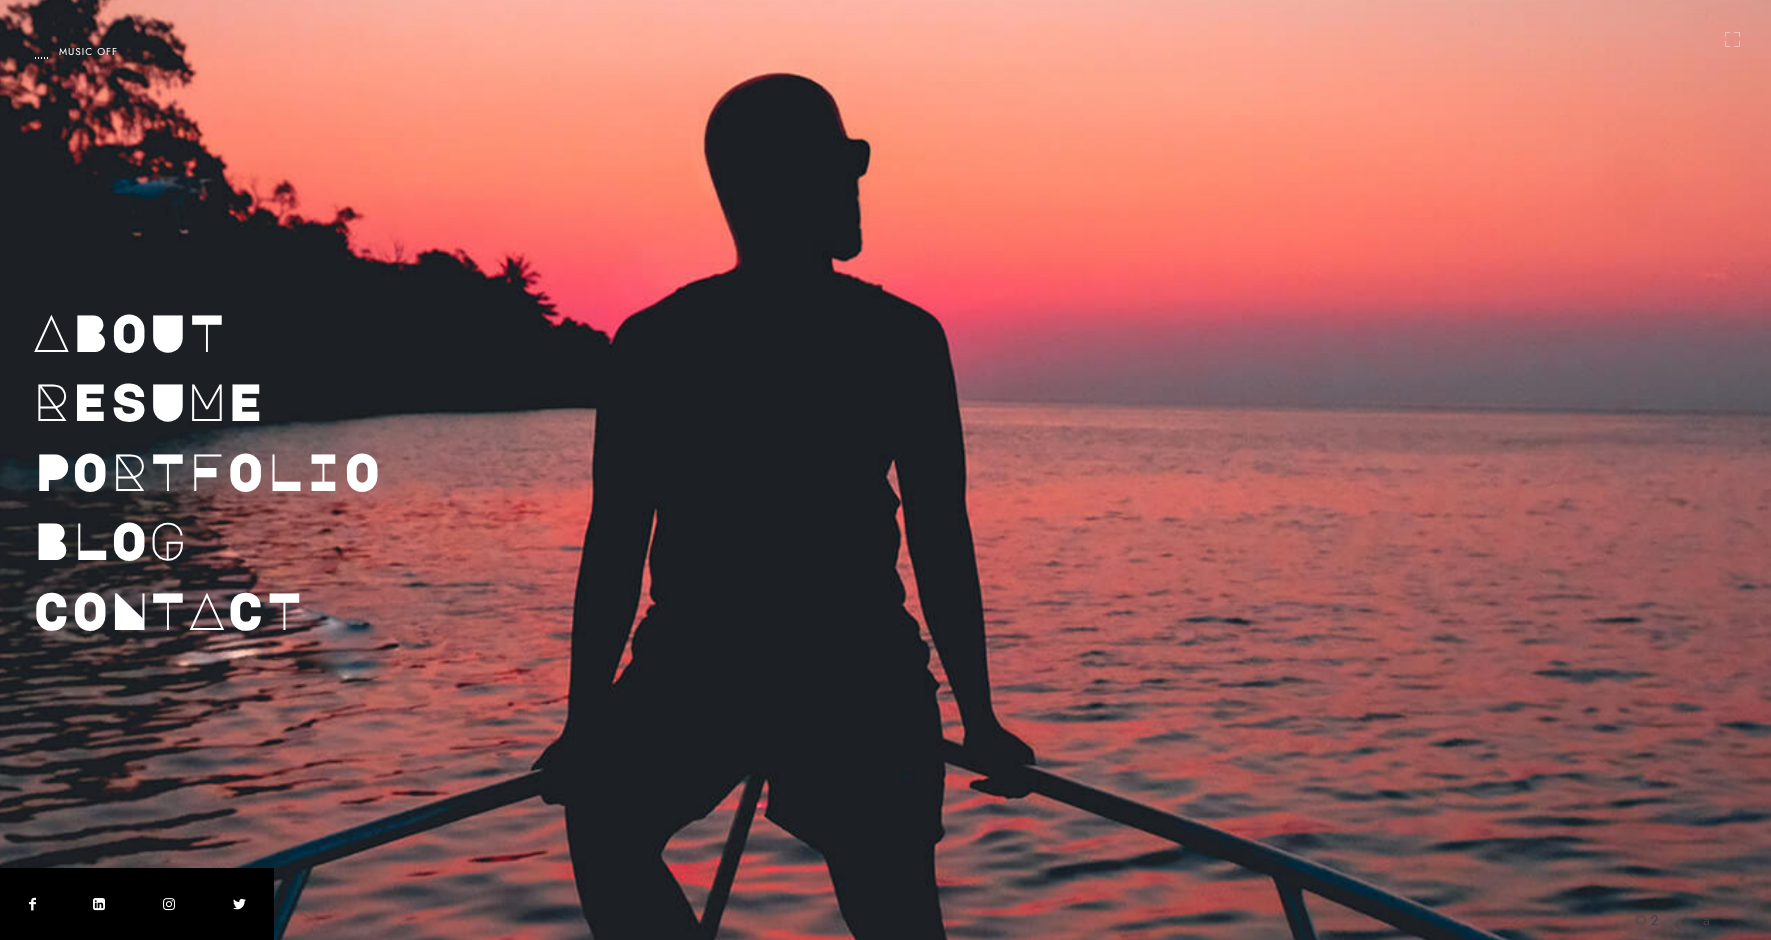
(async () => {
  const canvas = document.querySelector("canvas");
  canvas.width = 1771;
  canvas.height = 940;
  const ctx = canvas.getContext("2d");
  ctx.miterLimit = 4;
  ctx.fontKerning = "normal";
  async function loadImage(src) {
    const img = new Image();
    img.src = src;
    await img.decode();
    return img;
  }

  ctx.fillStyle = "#ffffff";
  ctx.fillRect(0, 0, 1771, 940);
  ctx.drawImage(await loadImage("img/1.png"), 0, 0, 1771, 940);
  for (const [x, y, w, h, color] of [
    [1725, 32, 1, 5, "#efc0b8"],
    [1725, 32, 5, 1, "#efc0b8"],
    [1739, 32, 1, 5, "rgba(255, 255, 255, 0.4)"],
    [1734, 32, 6, 1, "rgba(255, 255, 255, 0.4)"],
    [1725, 41, 1, 6, "#f1bfb8"],
    [1739, 41, 1, 6, "rgba(255, 255, 255, 0.4)"],
    [1725, 46, 5, 1, "#f0bfb8"],
    [1734, 46, 6, 1, "#efbeb6"],
    [35, 57, 1, 2, "#ffffff"],
    [38, 57, 1, 2, "#ffffff"],
    [41, 57, 1, 2, "#ffffff"],
    [44, 57, 1, 2, "#ffffff"],
    [47, 57, 1, 2, "#ffffff"],
    [0, 868, 274, 72, "#000000"],
  ]) {
    ctx.fillStyle = color;
    ctx.fillRect(x, y, w, h);
  }
  ctx.drawImage(await loadImage("img/2.png"), 29, 897, 7, 14);
  ctx.drawImage(await loadImage("img/3.png"), 93, 898, 12, 13);
  ctx.drawImage(await loadImage("img/4.png"), 163, 898, 12, 13);
  ctx.drawImage(await loadImage("img/5.png"), 233, 898, 13, 12);
  ctx.letterSpacing = "1px";
  ctx.font = "10px Jost";
  ctx.fillStyle = "#ffffff";
  ctx.fillText("MUSIC OFF", 59, 55);
  ctx.letterSpacing = "0px";
  ctx.font = "52.5px Major Mono Display";
  for (const [text, x, y] of [
    ["ABOUT", 32, 352],
    ["RESUME", 32, 421],
    ["PORTFOLIO", 32, 491],
    ["BLOG", 32, 560],
    ["CONTACT", 32, 630],
  ]) {
    ctx.fillText(text, x, y);
  }
  ctx.font = "14px Jost";
  ctx.fillStyle = "#4a3f42";
  ctx.fillText("© 2", 1635, 925);
  ctx.fillText("a", 1703, 925);
})();
